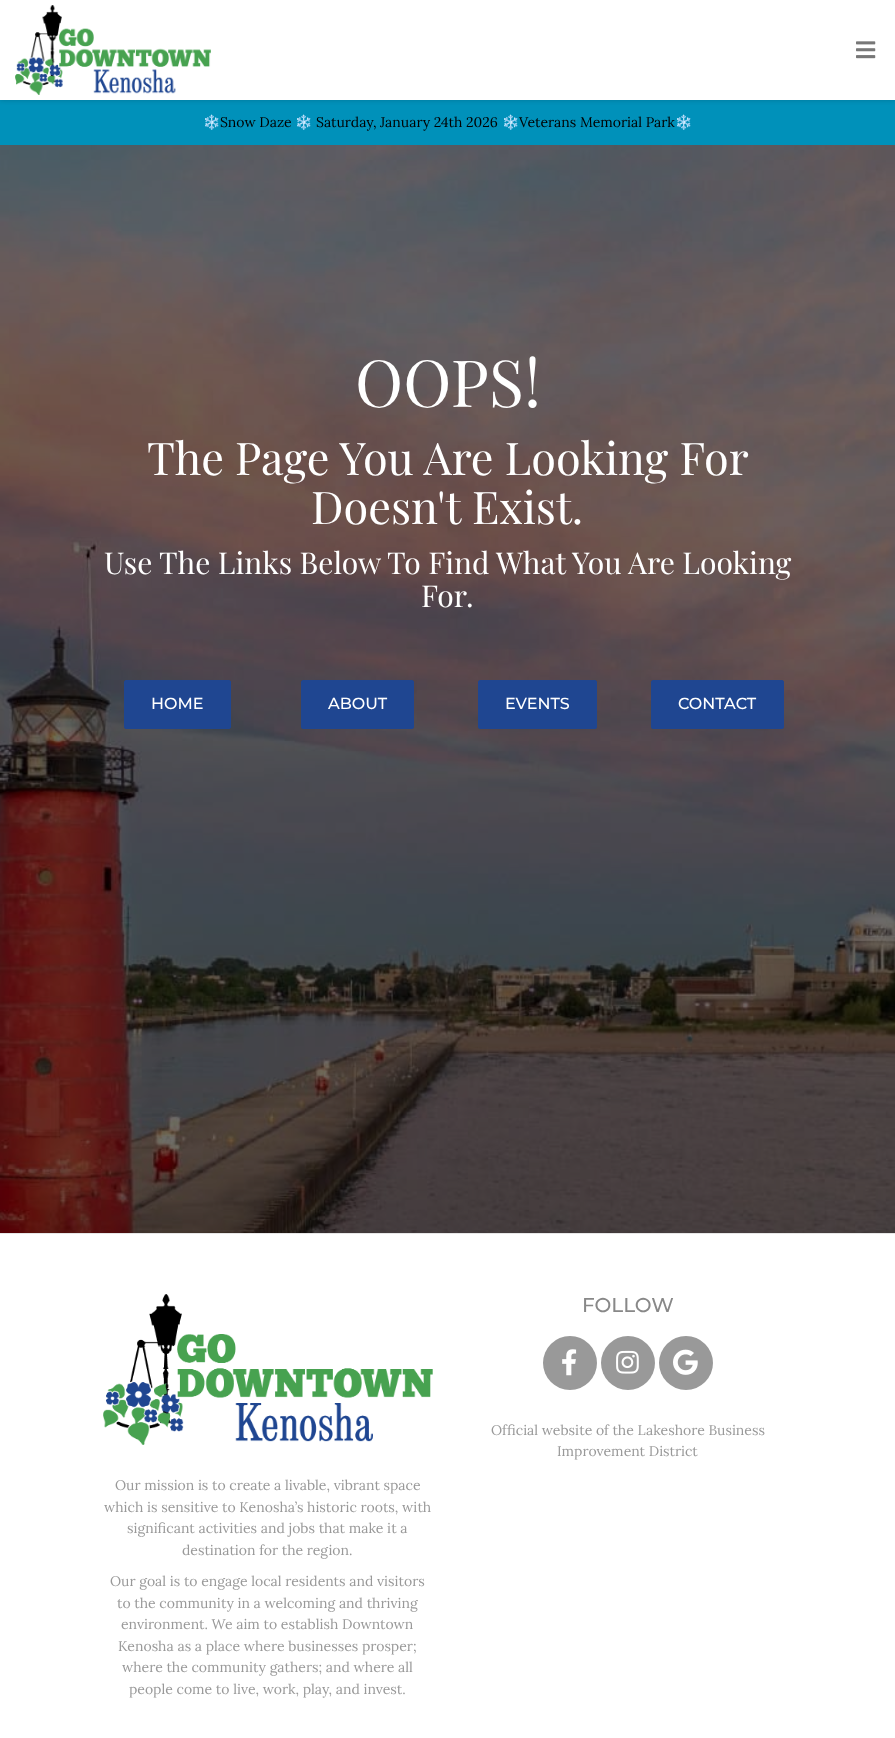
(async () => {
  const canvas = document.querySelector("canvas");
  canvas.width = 895;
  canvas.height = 1738;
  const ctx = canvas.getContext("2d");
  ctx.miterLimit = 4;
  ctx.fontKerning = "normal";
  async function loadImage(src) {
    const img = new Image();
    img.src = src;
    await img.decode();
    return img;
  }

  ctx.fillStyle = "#ffffff";
  ctx.fillRect(0, 0, 895, 1738);
  ctx.fillStyle = "#0091ba";
  ctx.fillRect(0, 100, 895, 45);
  ctx.fillStyle = "rgba(0, 0, 0, 0.19)";
  ctx.filter = "blur(2.5px)";
  ctx.beginPath();
  ctx.rect(0, 0, 895, 100);
  ctx.fill();
  ctx.filter = "none";
  ctx.fillStyle = "#ffffff";
  ctx.fillRect(0, 0, 895, 100);
  ctx.drawImage(await loadImage("img/1.png"), 15, 5, 196, 90);
  ctx.drawImage(await loadImage("img/2.png"), 856, 41, 20, 18);
  ctx.drawImage(await loadImage("img/3.png"), 0, 145, 895, 1088);
  ctx.fillStyle = "#1f4691";
  ctx.beginPath();
  ctx.roundRect(124.5, 680.5, 106, 48, 1.5);
  ctx.fill();
  ctx.strokeStyle = "#1f4691";
  ctx.stroke();
  ctx.beginPath();
  ctx.roundRect(301.5, 680.5, 112, 48, 1.5);
  ctx.fill();
  ctx.stroke();
  ctx.beginPath();
  ctx.roundRect(478.5, 680.5, 118, 48, 1.5);
  ctx.fill();
  ctx.stroke();
  ctx.beginPath();
  ctx.roundRect(651.5, 680.5, 132, 48, 1.5);
  ctx.fill();
  ctx.stroke();
  ctx.fillStyle = "#e6e6e6";
  ctx.fillRect(0, 1233, 895, 1);
  ctx.fillStyle = "#999999";
  ctx.beginPath();
  ctx.arc(570, 1363, 27, 0, Math.PI * 2);
  ctx.fill();
  ctx.drawImage(await loadImage("img/4.png"), 562, 1349, 15, 27);
  ctx.beginPath();
  ctx.arc(628, 1363, 27, 0, Math.PI * 2);
  ctx.fill();
  ctx.drawImage(await loadImage("img/5.png"), 616, 1350, 23, 24);
  ctx.beginPath();
  ctx.arc(686, 1363, 27, 0, Math.PI * 2);
  ctx.fill();
  ctx.drawImage(await loadImage("img/6.png"), 673, 1349, 25, 26);
  ctx.drawImage(await loadImage("img/7.png"), 103, 1294, 330, 151);
  ctx.font = "14px Noto Color Emoji";
  ctx.fillStyle = "#000000";
  ctx.fillText("❄️", 203, 127);
  ctx.font = "14px Lora";
  ctx.fillText("Snow Daze", 220, 127);
  ctx.font = "14px Noto Color Emoji";
  ctx.fillText("❄️", 295, 127);
  ctx.font = "14px Lora";
  ctx.fillText("Saturday, January 24th 2026", 316, 127);
  ctx.font = "14px Noto Color Emoji";
  ctx.fillText("❄️", 502, 127);
  ctx.font = "14px Lora";
  ctx.fillText("Veterans Memorial Park", 519, 127);
  ctx.font = "14px Noto Color Emoji";
  ctx.fillText("❄️", 675, 127);
  ctx.font = "65px Playfair Display";
  ctx.fillStyle = "#ffffff";
  ctx.fillText("OOPS!", 355, 407);
  ctx.font = "45px Playfair Display";
  ctx.fillText("The Page You Are Looking For", 147, 475);
  ctx.fillText("Doesn't Exist.", 311, 524);
  ctx.font = "30px Playfair Display";
  ctx.fillText("Use The Links Below To Find What You Are Looking", 104, 574);
  ctx.fillText("For.", 421, 607);
  ctx.font = "100 16px Montserrat";
  for (const [text, x, y] of [
    ["HOME", 151, 709],
    ["ABOUT", 328, 709],
    ["EVENTS", 505, 709],
    ["CONTACT", 678, 709],
  ]) {
    ctx.fillText(text, x, y);
  }
  ctx.font = "100 20px Montserrat";
  ctx.fillStyle = "#888888";
  ctx.fillText("FOLLOW", 582, 1312);
  ctx.font = "14px Lora";
  ctx.fillStyle = "#999999";
  for (const [text, x, y] of [
    ["Official website of the Lakeshore Business", 491, 1435],
    ["Improvement District", 557, 1456],
    ["Our mission is to create a livable, vibrant space", 115, 1490],
    ["which is sensitive to Kenosha’s historic roots, with", 104, 1512],
    ["significant activities and jobs that make it a", 127, 1533],
    ["destination for the region.", 182, 1555],
    ["Our goal is to engage local residents and visitors", 110, 1586],
    ["to the community in a welcoming and thriving", 117, 1608],
    ["environment. We aim to establish Downtown", 121, 1629],
    ["Kenosha as a place where businesses prosper;", 118, 1651],
    ["where the community gathers; and where all", 122, 1672],
    ["people come to live, work, play, and invest.", 129, 1694],
  ]) {
    ctx.fillText(text, x, y);
  }
})();
